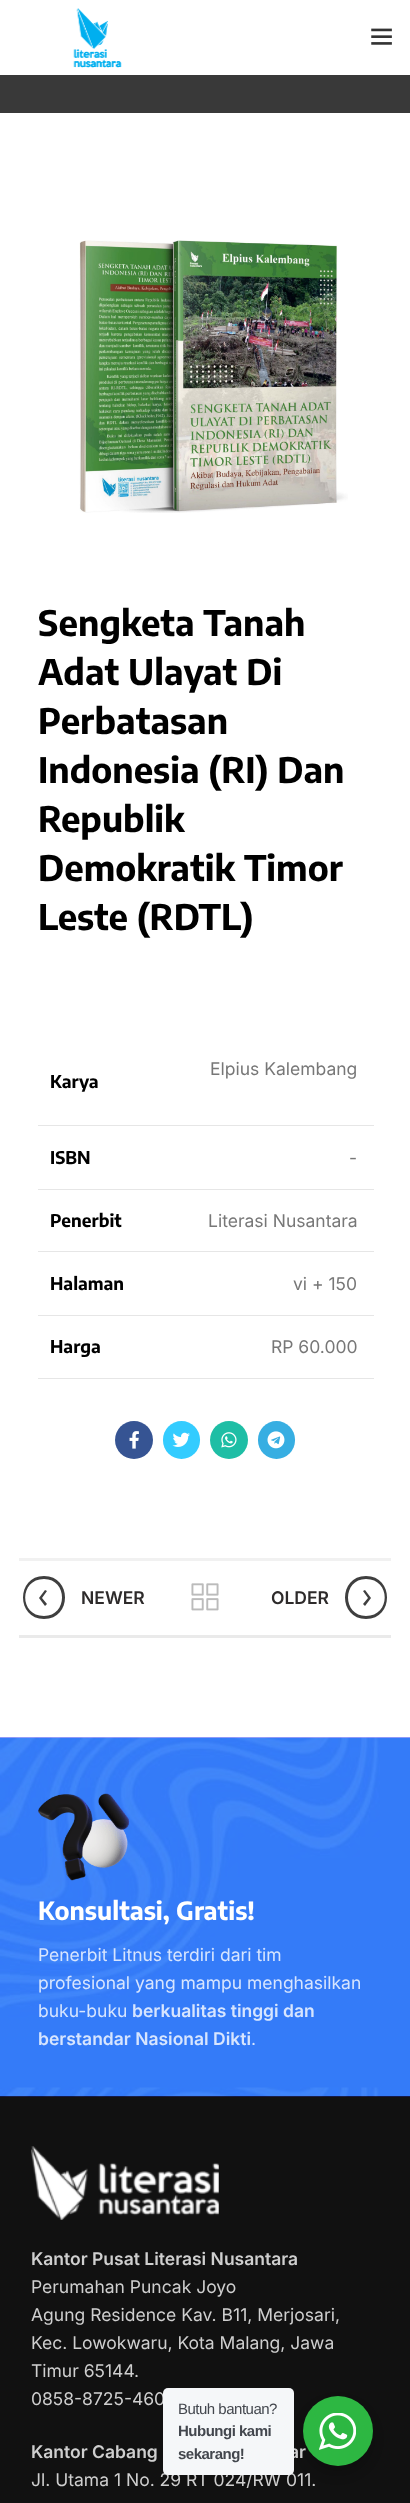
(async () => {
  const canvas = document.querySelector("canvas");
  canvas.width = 410;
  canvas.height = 2503;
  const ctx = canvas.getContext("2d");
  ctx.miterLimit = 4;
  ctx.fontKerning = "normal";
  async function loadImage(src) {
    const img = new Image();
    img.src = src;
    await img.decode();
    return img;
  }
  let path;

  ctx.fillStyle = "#ffffff";
  ctx.fillRect(0, 0, 410, 2503);
  ctx.drawImage(await loadImage("img/1.png"), 73, 8, 49, 60);
  ctx.drawImage(await loadImage("img/2.png"), 371, 28, 21, 17);
  ctx.fillStyle = "#393939";
  ctx.fillRect(0, 75, 410, 38);
  ctx.drawImage(await loadImage("img/3.png"), 79, 240, 269, 273);
  for (const [x, y, w, h, color] of [
    [38, 1125, 336, 1, "#e6e6e6"],
    [38, 1189, 336, 1, "#e6e6e6"],
    [38, 1251, 336, 1, "#e6e6e6"],
    [38, 1315, 336, 1, "#e6e6e6"],
    [38, 1378, 336, 1, "#e6e6e6"],
  ]) {
    ctx.fillStyle = color;
    ctx.fillRect(x, y, w, h);
  }
  ctx.fillStyle = "#365493";
  ctx.beginPath();
  ctx.arc(134, 1440, 19, 0, Math.PI * 2);
  ctx.fill();
  ctx.drawImage(await loadImage("img/4.png"), 129, 1431, 10, 18);
  ctx.fillStyle = "#33ccff";
  ctx.beginPath();
  ctx.roundRect(163, 1421, 37, 38, 18.5);
  ctx.fill();
  ctx.drawImage(await loadImage("img/5.png"), 172, 1432, 18, 15);
  ctx.fillStyle = "#1ebea5";
  ctx.beginPath();
  ctx.arc(229, 1440, 19, 0, Math.PI * 2);
  ctx.fill();
  ctx.drawImage(await loadImage("img/6.png"), 221, 1432, 16, 16);
  ctx.fillStyle = "#37aee2";
  ctx.beginPath();
  ctx.roundRect(258, 1421, 37, 38, 18.5);
  ctx.fill();
  ctx.drawImage(await loadImage("img/7.png"), 267, 1431, 18, 18);
  ctx.fillStyle = "#f1f1f1";
  ctx.fillRect(19, 1558, 372, 3);
  ctx.fillStyle = "#eaeaea";
  ctx.fillRect(19, 1635, 372, 3);
  ctx.fillStyle = "#3f3f3f";
  path = new Path2D("M44 1619C16 1619 16 1576 44 1576C72 1576 72 1619 44 1619ZM44 1579C19 1579 19 1616 44 1616C68 1616 68 1579 44 1579ZM45 1606L39 1598L45 1590L47 1591L42 1598L47 1604Z");
  ctx.fill(path);
  ctx.drawImage(await loadImage("img/8.png"), 191, 1583, 28, 28);
  path = new Path2D("M366 1619C338 1619 338 1576 366 1576C394 1576 394 1619 366 1619ZM366 1579C342 1579 342 1616 366 1616C391 1616 391 1579 366 1579ZM365 1606L363 1604L368 1598L363 1591L365 1590L371 1598Z");
  ctx.fill(path);
  ctx.fillStyle = "#111111";
  ctx.fillRect(0, 2096, 410, 407);
  ctx.drawImage(await loadImage("img/9.png"), 0, 1737, 410, 360);
  ctx.drawImage(await loadImage("img/10.png"), 38, 1793, 92, 88);
  ctx.drawImage(await loadImage("img/11.png"), 31, 2146, 188, 74);
  ctx.fillStyle = "rgba(0, 0, 0, 0.14)";
  ctx.filter = "blur(5px)";
  ctx.beginPath();
  ctx.roundRect(300, 2401, 75, 75, 37.5);
  ctx.fill();
  ctx.filter = "none";
  ctx.font = "bold 35px Encode Sans Condensed";
  ctx.fillStyle = "#000000";
  for (const [text, x, y] of [
    ["Sengketa Tanah", 38, 636],
    ["Adat Ulayat Di", 38, 685],
    ["Perbatasan", 38, 734],
    ["Indonesia (RI) Dan", 38, 783],
    ["Republik", 38, 832],
    ["Demokratik Timor", 38, 881],
    ["Leste (RDTL)", 38, 930],
  ]) {
    ctx.fillText(text, x, y);
  }
  ctx.font = "17.5px Inter";
  ctx.fillStyle = "#777777";
  ctx.fillText("Elpius Kalembang", 210, 1075);
  ctx.font = "bold 17.5px Encode Sans Condensed";
  ctx.fillStyle = "#000000";
  ctx.fillText("Karya", 50, 1088);
  ctx.fillText("ISBN", 50, 1164);
  ctx.font = "17.5px Inter";
  ctx.fillStyle = "#777777";
  ctx.fillText("-", 349, 1164);
  ctx.font = "bold 17.5px Encode Sans Condensed";
  ctx.fillStyle = "#000000";
  ctx.fillText("Penerbit", 50, 1227);
  ctx.font = "17.5px Inter";
  ctx.fillStyle = "#777777";
  ctx.fillText("Literasi Nusantara", 208, 1227);
  ctx.font = "bold 17.5px Encode Sans Condensed";
  ctx.fillStyle = "#000000";
  ctx.fillText("Halaman", 50, 1290);
  ctx.font = "17.5px Inter";
  ctx.fillStyle = "#777777";
  ctx.fillText("vi + 150", 293, 1290);
  ctx.font = "bold 17.5px Encode Sans Condensed";
  ctx.fillStyle = "#000000";
  ctx.fillText("Harga", 50, 1353);
  ctx.font = "17.5px Inter";
  ctx.fillStyle = "#777777";
  ctx.fillText("RP 60.000", 271, 1353);
  ctx.font = "600 17.5px Inter";
  ctx.fillStyle = "#2d2a2a";
  ctx.fillText("NEWER", 81, 1604);
  ctx.fillText("OLDER", 271, 1604);
  ctx.font = "bold 25px Encode Sans Condensed";
  ctx.fillStyle = "#ffffff";
  ctx.fillText("Konsultasi, Gratis!", 38, 1920);
  ctx.font = "17.5px Inter";
  ctx.fillStyle = "#d7e5fe";
  for (const [text, x, y] of [
    ["Penerbit Litnus terdiri dari tim", 38, 1961],
    ["profesional yang mampu menghasilkan", 38, 1989],
    ["buku-buku", 38, 2017],
  ]) {
    ctx.fillText(text, x, y);
  }
  ctx.font = "600 17.5px Inter";
  ctx.fillText("berkualitas tinggi dan", 132, 2017);
  ctx.fillText("berstandar Nasional Dikti", 38, 2045);
  ctx.font = "17.5px Inter";
  ctx.fillText(".", 251, 2045);
  ctx.font = "600 17.5px Inter";
  ctx.fillStyle = "#cfcfcf";
  ctx.fillText("Kantor Pusat Literasi Nusantara", 31, 2265);
  ctx.font = "17.5px Inter";
  for (const [text, x, y] of [
    ["Perumahan Puncak Joyo", 31, 2293],
    ["Agung Residence Kav. B11, Merjosari,", 31, 2321],
    ["Kec. Lowokwaru, Kota Malang, Jawa", 31, 2349],
    ["Timur 65144.", 31, 2377],
    ["0858-8725-460", 31, 2405],
  ]) {
    ctx.fillText(text, x, y);
  }
  ctx.font = "600 17.5px Inter";
  ctx.fillText("Kantor Cabang", 31, 2458);
  ctx.fillText("ar", 289, 2458);
  ctx.font = "17.5px Inter";
  ctx.fillText("Jl. Utama 1 No. 29 RT 024/RW 011.", 31, 2486);
  ctx.fillStyle = "#f5f7f9";
  ctx.beginPath();
  ctx.roundRect(163, 2388, 131, 87, 5);
  ctx.fill();
  ctx.letterSpacing = "-0.5px";
  ctx.font = "15px Liberation Sans";
  ctx.fillStyle = "#43474e";
  ctx.fillText("Butuh bantuan?", 178, 2414);
  ctx.font = "bold 15px Liberation Sans";
  ctx.fillText("Hubungi kami", 178, 2436);
  ctx.fillText("sekarang!", 178, 2459);
  ctx.fillStyle = "#2db742";
  ctx.beginPath();
  ctx.arc(338, 2431, 35, 0, Math.PI * 2);
  ctx.fill();
  ctx.drawImage(await loadImage("img/12.png"), 319, 2413, 37, 37);
})();
